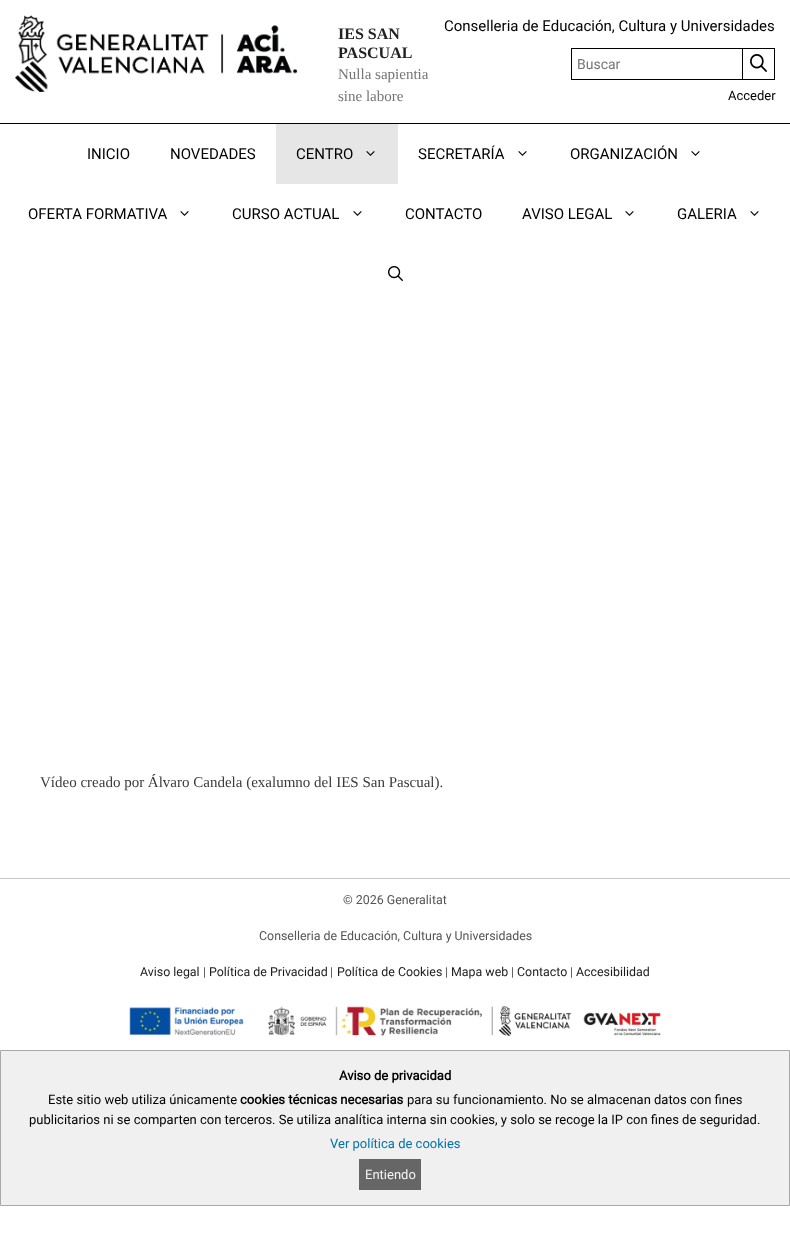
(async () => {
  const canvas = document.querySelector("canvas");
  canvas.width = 790;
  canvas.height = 1251;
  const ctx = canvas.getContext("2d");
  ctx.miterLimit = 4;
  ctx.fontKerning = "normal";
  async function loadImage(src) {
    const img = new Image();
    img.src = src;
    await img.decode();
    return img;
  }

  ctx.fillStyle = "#ffffff";
  ctx.fillRect(0, 0, 790, 1251);
  ctx.fillStyle = "#000000";
  ctx.fillRect(0, 123, 790, 1);
  ctx.drawImage(await loadImage("img/1.png"), 15, 15, 283, 77);
  ctx.strokeStyle = "#000000";
  ctx.strokeRect(571.5, 48.5, 171, 31);
  ctx.drawImage(await loadImage("img/2.png"), 750, 54, 17, 18);
  for (const [x, y, w, h, color] of [
    [743, 48, 32, 1, "#000000"],
    [774, 48, 1, 32, "#000000"],
    [743, 79, 32, 1, "#000000"],
    [276, 124, 122, 60, "#e6e6e6"],
  ]) {
    ctx.fillStyle = color;
    ctx.fillRect(x, y, w, h);
  }
  ctx.drawImage(await loadImage("img/3.png"), 366, 151, 9, 5);
  ctx.drawImage(await loadImage("img/4.png"), 518, 151, 9, 5);
  ctx.drawImage(await loadImage("img/4.png"), 691, 151, 9, 5);
  ctx.drawImage(await loadImage("img/4.png"), 180, 211, 9, 5);
  ctx.drawImage(await loadImage("img/4.png"), 353, 211, 9, 5);
  ctx.drawImage(await loadImage("img/4.png"), 625, 211, 9, 5);
  ctx.drawImage(await loadImage("img/4.png"), 750, 211, 9, 5);
  ctx.drawImage(await loadImage("img/5.png"), 388, 266, 15, 15);
  ctx.fillStyle = "#c9c9c4";
  ctx.fillRect(0, 878, 790, 1);
  ctx.drawImage(await loadImage("img/6.png"), 129, 1005, 532, 31);
  ctx.fillStyle = "#f0f0f0";
  ctx.beginPath();
  ctx.rect(0.5, 1050.5, 789, 155);
  ctx.fill();
  ctx.strokeStyle = "#a9a9a9";
  ctx.stroke();
  ctx.fillStyle = "#666666";
  ctx.fillRect(359, 1159, 62, 31);
  ctx.font = "bold 16px Liberation Serif";
  ctx.fillStyle = "#222222";
  ctx.fillText("IES SAN", 338, 39);
  ctx.fillText("PASCUAL", 338, 58);
  ctx.font = "15px Liberation Serif";
  ctx.fillStyle = "#757575";
  ctx.fillText("Nulla sapientia", 338, 79);
  ctx.fillText("sine labore", 338, 101);
  ctx.font = "15px Roboto";
  ctx.fillStyle = "#000000";
  ctx.fillText("Conselleria de Educación, Cultura y Universidades", 444, 31);
  ctx.font = "14px Roboto";
  ctx.fillStyle = "#757575";
  ctx.fillText("Buscar", 577, 69);
  ctx.font = "13px Roboto";
  ctx.fillStyle = "#000000";
  ctx.fillText("Acceder", 728, 100);
  ctx.font = "15px Roboto";
  for (const [text, x, y] of [
    ["INICIO", 87, 159],
    ["NOVEDADES", 170, 159],
    ["CENTRO", 296, 159],
    ["SECRETARÍA", 418, 159],
    ["ORGANIZACIÓN", 570, 159],
    ["OFERTA FORMATIVA", 28, 219],
    ["CURSO ACTUAL", 232, 219],
    ["CONTACTO", 405, 219],
    ["AVISO LEGAL", 522, 219],
    ["GALERIA", 677, 219],
  ]) {
    ctx.fillText(text, x, y);
  }
  ctx.font = "15px Liberation Serif";
  ctx.fillStyle = "#3a3a3a";
  ctx.fillText("Vídeo creado por Álvaro Candela (exalumno del IES San Pascual).", 40, 787);
  ctx.font = "12.4px Roboto";
  ctx.fillStyle = "#565353";
  ctx.fillText("© 2026 Generalitat", 343, 904);
  ctx.fillText("Conselleria de Educación, Cultura y Universidades", 259, 940);
  ctx.fillStyle = "#1b1b1b";
  ctx.fillText("Aviso legal", 140, 976);
  ctx.fillStyle = "#565353";
  ctx.fillText("|", 203, 976);
  ctx.fillStyle = "#1b1b1b";
  ctx.fillText("Política de Privacidad", 209, 976);
  ctx.fillStyle = "#565353";
  ctx.fillText("|", 330, 976);
  ctx.fillStyle = "#1b1b1b";
  ctx.fillText("Política de Cookies", 337, 976);
  ctx.fillStyle = "#565353";
  ctx.fillText("|", 445, 976);
  ctx.fillStyle = "#1b1b1b";
  ctx.fillText("Mapa web", 451, 976);
  ctx.fillStyle = "#565353";
  ctx.fillText("|", 511, 976);
  ctx.fillStyle = "#1b1b1b";
  ctx.fillText("Contacto", 517, 976);
  ctx.fillStyle = "#565353";
  ctx.fillText("|", 570, 976);
  ctx.fillStyle = "#1b1b1b";
  ctx.fillText("Accesibilidad", 576, 976);
  ctx.font = "bold 13px Roboto";
  ctx.fillStyle = "#000000";
  ctx.fillText("Aviso de privacidad", 339, 1080);
  ctx.font = "13px Roboto";
  ctx.fillText("Este sitio web utiliza únicamente", 48, 1104);
  ctx.font = "bold 13px Roboto";
  ctx.fillText("cookies técnicas necesarias", 240, 1104);
  ctx.font = "13px Roboto";
  ctx.fillText("para su funcionamiento. No se almacenan datos con fines", 407, 1104);
  ctx.fillText("publicitarios ni se comparten con terceros. Se utiliza analítica interna sin cookies, y solo se recoge la IP con fines de seguridad.", 29, 1124);
  ctx.fillStyle = "#0073aa";
  ctx.fillText("Ver política de cookies", 330, 1148);
  ctx.fillStyle = "#f5f5f5";
  ctx.fillText("Entiendo", 365, 1179);
})();
